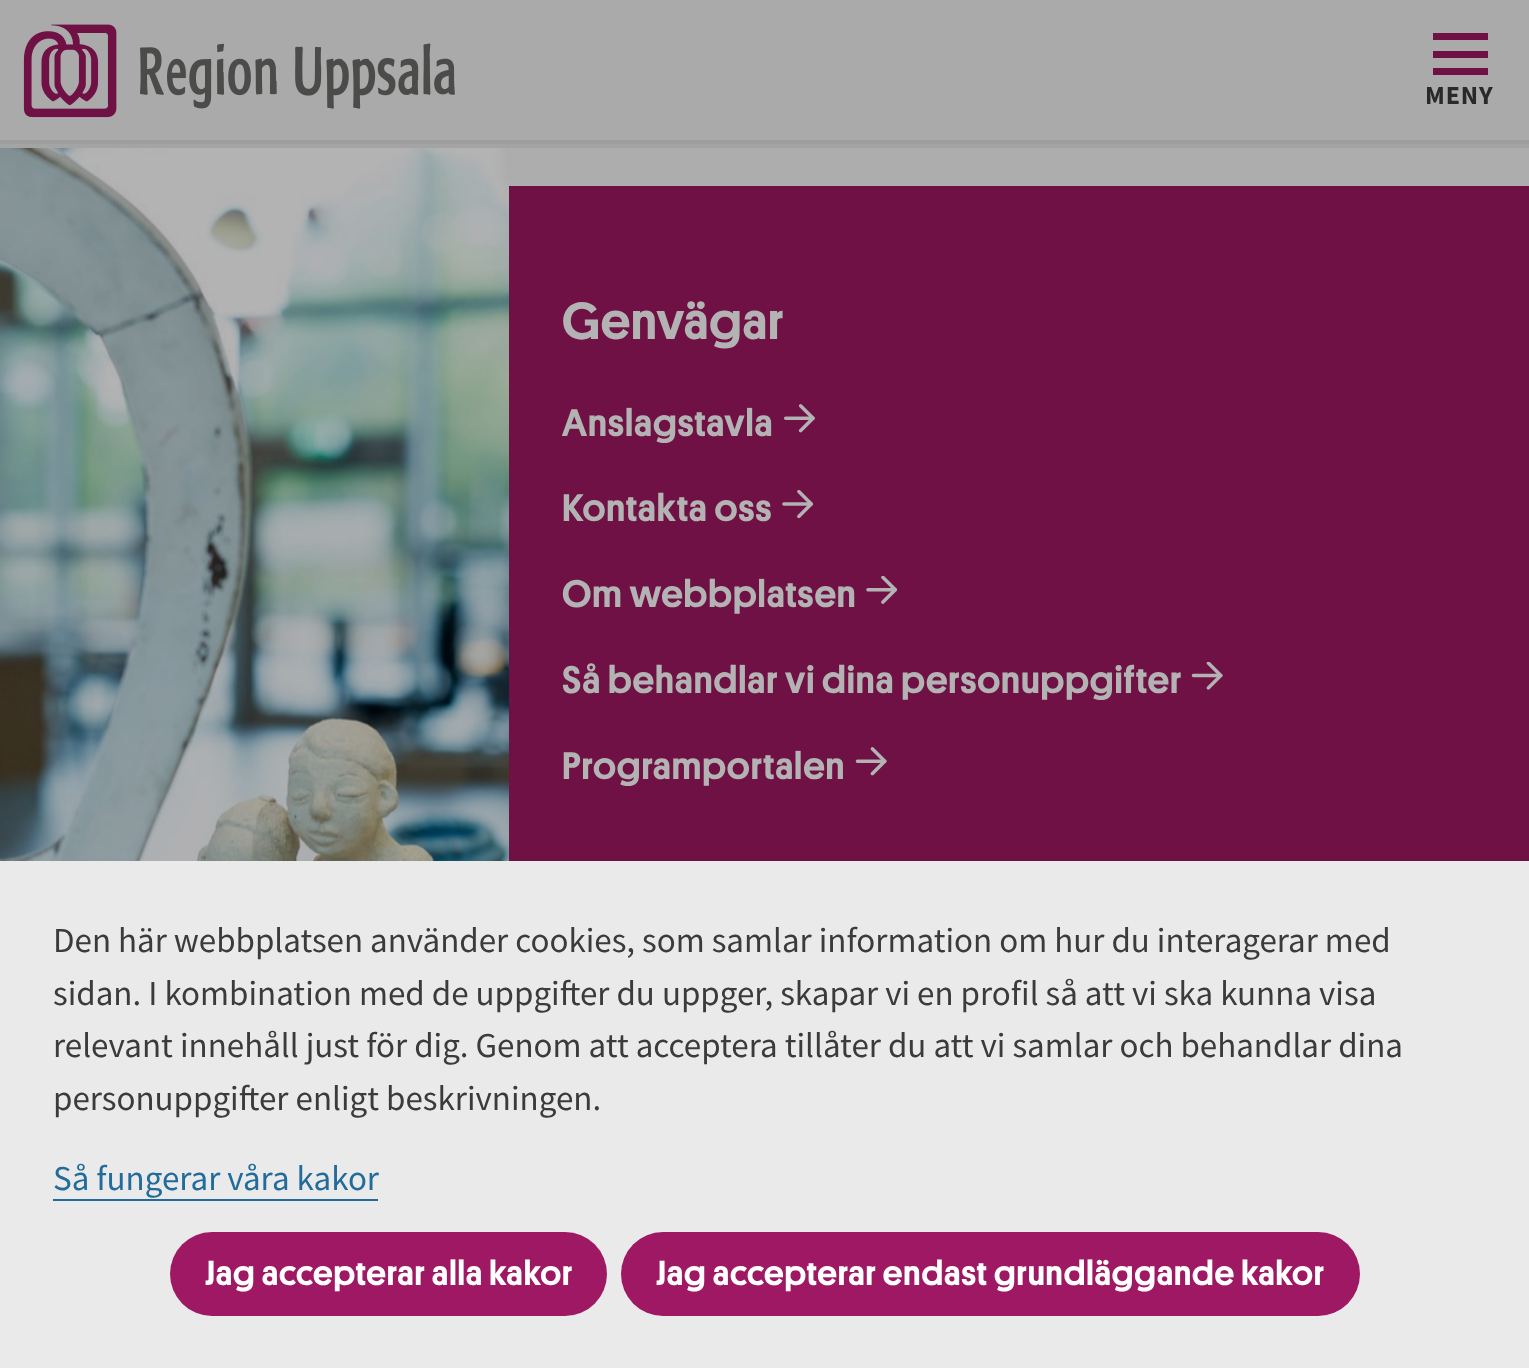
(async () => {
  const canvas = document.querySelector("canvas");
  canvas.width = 1529;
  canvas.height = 1368;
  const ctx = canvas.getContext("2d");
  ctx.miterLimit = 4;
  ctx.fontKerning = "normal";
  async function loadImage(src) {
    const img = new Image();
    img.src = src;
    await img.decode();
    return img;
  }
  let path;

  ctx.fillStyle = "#ffffff";
  ctx.fillRect(0, 0, 1529, 1368);
  ctx.drawImage(await loadImage("img/2.png"), 0, 148, 509, 713);
  ctx.fillStyle = "rgba(0, 0, 0, 0.08)";
  ctx.filter = "blur(9px)";
  ctx.beginPath();
  ctx.rect(509, -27, 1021, 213);
  ctx.fill();
  ctx.filter = "none";
  for (const [x, y, w, h, color] of [
    [509, 148, 1020, 38, "#adadad"],
    [0, 0, 1529, 140, "#aaaaaa"],
    [0, 144, 1529, 4, "#a4a4a4"],
    [0, 140, 1529, 4, "#9d9d9d"],
  ]) {
    ctx.fillStyle = color;
    ctx.fillRect(x, y, w, h);
  }
  ctx.drawImage(await loadImage("img/1.png"), 23, 24, 432, 94);
  ctx.fillStyle = "#6f1145";
  path = new Path2D("M1433 68H1488V75H1433ZM1433 51H1488V58H1433ZM1433 33H1488V40H1433Z");
  ctx.fill(path);
  ctx.fillRect(509, 186, 1020, 675);
  ctx.drawImage(await loadImage("img/3.png"), 784, 404, 31, 29);
  ctx.drawImage(await loadImage("img/4.png"), 782, 490, 31, 29);
  ctx.drawImage(await loadImage("img/5.png"), 866, 576, 31, 28);
  ctx.drawImage(await loadImage("img/6.png"), 1191, 662, 32, 28);
  ctx.drawImage(await loadImage("img/7.png"), 855, 747, 32, 29);
  ctx.fillStyle = "#eaeaea";
  ctx.fillRect(0, 861, 1529, 507);
  ctx.fillStyle = "#216c9a";
  ctx.fillRect(53, 1199, 325, 2);
  ctx.fillStyle = "#9e1863";
  ctx.beginPath();
  ctx.roundRect(170, 1232, 437, 84, 42);
  ctx.fill();
  ctx.beginPath();
  ctx.roundRect(621, 1232, 739, 84, 42);
  ctx.fill();
  ctx.letterSpacing = "0.9px";
  ctx.font = "bold 26px Source Sans Pro";
  ctx.fillStyle = "#292929";
  ctx.fillText("MENY", 1425, 104);
  ctx.font = "500 52.5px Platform";
  ctx.fillStyle = "#b3b3b3";
  ctx.fillText("Genvägar", 562, 339);
  ctx.font = "500 38.5px Platform";
  for (const [text, x, y] of [
    ["Anslagstavla", 562, 436],
    ["Kontakta oss", 562, 521],
    ["Om webbplatsen", 562, 607],
    ["Så behandlar vi dina personuppgifter", 562, 693],
    ["Programportalen", 562, 779],
  ]) {
    ctx.fillText(text, x, y);
  }
  ctx.letterSpacing = "0px";
  ctx.font = "35px Source Sans Pro";
  ctx.fillStyle = "#3b3b3b";
  for (const [text, x, y] of [
    ["Den här webbplatsen använder cookies, som samlar information om hur du interagerar med", 53, 952],
    ["sidan. I kombination med de uppgifter du uppger, skapar vi en profil så att vi ska kunna visa", 53, 1005],
    ["relevant innehåll just för dig. Genom att acceptera tillåter du att vi samlar och behandlar dina", 53, 1057],
    ["personuppgifter enligt beskrivningen.", 53, 1110],
  ]) {
    ctx.fillText(text, x, y);
  }
  ctx.fillStyle = "#216c9a";
  ctx.fillText("Så fungerar våra kakor", 53, 1190);
  ctx.letterSpacing = "0.9px";
  ctx.font = "500 35px Platform";
  ctx.fillStyle = "#ffffff";
  ctx.fillText("Jag accepterar alla kakor", 205, 1285);
  ctx.fillText("Jag accepterar endast grundläggande kakor", 656, 1285);
})();
